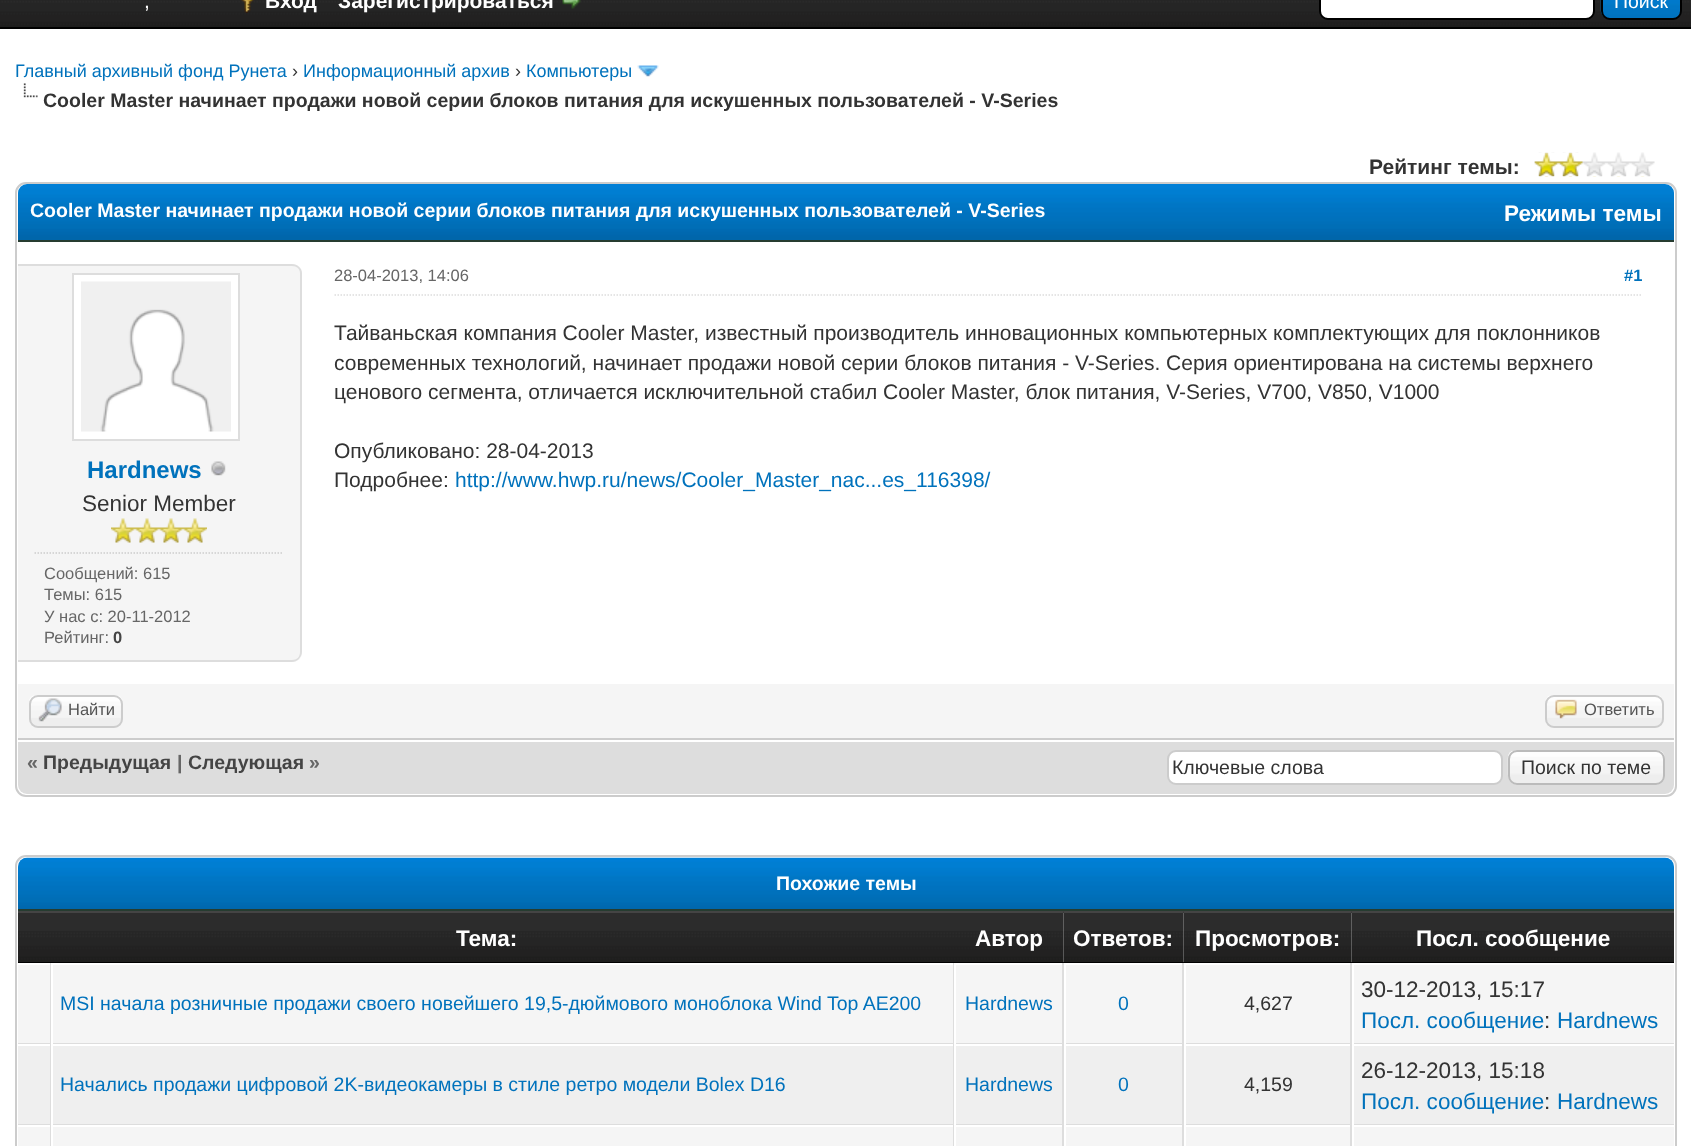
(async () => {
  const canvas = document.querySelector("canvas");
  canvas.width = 1691;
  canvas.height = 1146;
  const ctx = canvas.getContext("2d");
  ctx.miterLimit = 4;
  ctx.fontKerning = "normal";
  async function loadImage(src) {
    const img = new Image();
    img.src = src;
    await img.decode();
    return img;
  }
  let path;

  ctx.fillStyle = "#ffffff";
  ctx.fillRect(0, 0, 1691, 1146);
  ctx.drawImage(await loadImage("img/1.png"), 0, 0, 1691, 27);
  ctx.fillStyle = "#000000";
  ctx.fillRect(0, 27, 1691, 2);
  ctx.drawImage(await loadImage("img/2.png"), 241, 0, 13, 13);
  ctx.drawImage(await loadImage("img/3.png"), 562, 0, 19, 9);
  ctx.fillStyle = "#ffffff";
  ctx.beginPath();
  ctx.roundRect(1320, -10, 274, 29, 8);
  ctx.fill();
  ctx.strokeStyle = "#000000";
  ctx.lineWidth = 2;
  ctx.stroke();
  ctx.drawImage(await loadImage("img/4.png"), 1600, 0, 82, 19);
  ctx.beginPath();
  ctx.roundRect(1602, -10, 79, 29, 8);
  ctx.stroke();
  ctx.drawImage(await loadImage("img/5.png"), 637, 65, 22, 12);
  ctx.drawImage(await loadImage("img/6.png"), 23, 83, 15, 15);
  ctx.drawImage(await loadImage("img/7.png"), 1534, 152, 121, 25);
  ctx.drawImage(await loadImage("img/8.png"), 1534, 152, 49, 25);
  ctx.beginPath();
  ctx.roundRect(16, 183, 1660, 613, 10);
  ctx.strokeStyle = "#cccccc";
  ctx.stroke();
  ctx.drawImage(await loadImage("img/9.png"), 18, 184, 1656, 56);
  ctx.fillStyle = "#263c30";
  ctx.fillRect(18, 240, 1656, 2);
  path = new Path2D("M334.5 295H1642.5");
  ctx.strokeStyle = "#dddddd";
  ctx.lineWidth = 1.5;
  ctx.setLineDash([1.5, 1.5]);
  ctx.stroke(path);
  ctx.fillStyle = "#f5f5f5";
  ctx.beginPath();
  ctx.roundRect(18, 264, 284, 398, [0, 9, 9, 0]);
  ctx.fill();
  ctx.fillStyle = "#dddddd";
  path = new Path2D("M18 264H292C297 264 302 268 302 273V652C302 657 297 662 292 662H18ZM18 266H292C297 266 300 269 300 273V652C300 657 297 660 292 660H18Z");
  ctx.fill(path, "evenodd");
  ctx.fillStyle = "#ffffff";
  ctx.beginPath();
  ctx.rect(73, 274, 166, 166);
  ctx.fill();
  ctx.lineWidth = 2;
  ctx.setLineDash([]);
  ctx.stroke();
  ctx.drawImage(await loadImage("img/10.png"), 81, 281, 150, 151);
  ctx.drawImage(await loadImage("img/11.png"), 211, 461, 15, 15);
  ctx.drawImage(await loadImage("img/12.png"), 111, 518, 24, 25);
  ctx.drawImage(await loadImage("img/12.png"), 135, 518, 24, 25);
  ctx.drawImage(await loadImage("img/12.png"), 159, 518, 24, 25);
  ctx.drawImage(await loadImage("img/12.png"), 183, 518, 24, 25);
  path = new Path2D("M34.5 553H283.5");
  ctx.strokeStyle = "#cccccc";
  ctx.lineWidth = 1.5;
  ctx.setLineDash([1.5, 1.5]);
  ctx.stroke(path);
  ctx.fillStyle = "#f5f5f5";
  ctx.fillRect(18, 684, 1656, 54);
  ctx.fillStyle = "#cccccc";
  ctx.fillRect(18, 738, 1656, 2);
  ctx.fillStyle = "#eeeeee";
  ctx.beginPath();
  ctx.roundRect(29, 695, 94, 33, 9);
  ctx.fill();
  ctx.drawImage(await loadImage("img/13.png"), 29, 695, 94, 23);
  ctx.beginPath();
  ctx.roundRect(30, 696, 92, 31, 8);
  ctx.lineWidth = 2;
  ctx.setLineDash([]);
  ctx.stroke();
  ctx.drawImage(await loadImage("img/14.png"), 38, 698, 24, 24);
  ctx.beginPath();
  ctx.roundRect(1545, 695, 119, 33, 9);
  ctx.fill();
  ctx.drawImage(await loadImage("img/15.png"), 1545, 695, 118, 23);
  ctx.beginPath();
  ctx.roundRect(1546, 696, 117, 31, 8);
  ctx.stroke();
  ctx.drawImage(await loadImage("img/16.png"), 1555, 699, 22, 20);
  ctx.fillStyle = "#dddddd";
  ctx.beginPath();
  ctx.roundRect(18, 740, 1656, 54, [0, 0, 9, 9]);
  ctx.fill();
  ctx.fillStyle = "#ffffff";
  ctx.fillRect(18, 740, 1656, 2);
  ctx.beginPath();
  ctx.roundRect(1168, 751, 334, 33, 8);
  ctx.fill();
  ctx.stroke();
  ctx.fillStyle = "#eeeeee";
  ctx.beginPath();
  ctx.roundRect(1508, 750, 157, 35, 9);
  ctx.fill();
  ctx.drawImage(await loadImage("img/17.png"), 1507, 751, 158, 24);
  ctx.beginPath();
  ctx.roundRect(1509, 751, 155, 33, 8);
  ctx.strokeStyle = "#bbbbbb";
  ctx.stroke();
  ctx.beginPath();
  ctx.roundRect(16, 856, 1660, 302, 10);
  ctx.strokeStyle = "#cccccc";
  ctx.stroke();
  ctx.drawImage(await loadImage("img/18.png"), 18, 857, 1656, 52);
  ctx.fillStyle = "#263c30";
  ctx.fillRect(18, 909, 1656, 2);
  ctx.drawImage(await loadImage("img/19.png"), 18, 913, 936, 49);
  ctx.fillStyle = "#444444";
  ctx.fillRect(18, 911, 1046, 2);
  ctx.fillStyle = "#000000";
  ctx.fillRect(18, 962, 1046, 1);
  ctx.drawImage(await loadImage("img/20.png"), 954, 913, 110, 49);
  ctx.drawImage(await loadImage("img/21.png"), 1063, 911, 121, 52);
  ctx.fillStyle = "#444444";
  ctx.fillRect(1064, 911, 120, 2);
  ctx.fillStyle = "#000000";
  ctx.fillRect(1064, 962, 120, 1);
  ctx.drawImage(await loadImage("img/22.png"), 1183, 911, 169, 52);
  ctx.fillStyle = "#444444";
  ctx.fillRect(1184, 911, 168, 2);
  ctx.fillStyle = "#000000";
  ctx.fillRect(1184, 962, 168, 1);
  ctx.drawImage(await loadImage("img/23.png"), 1351, 911, 323, 52);
  for (const [x, y, w, h, color] of [
    [1352, 911, 322, 2, "#444444"],
    [1352, 962, 322, 1, "#000000"],
    [18, 965, 32, 78, "#f5f5f5"],
    [50, 963, 1, 183, "#dddddd"],
    [18, 1043, 33, 1, "#dddddd"],
    [53, 965, 900, 78, "#f5f5f5"],
    [953, 963, 1, 183, "#dddddd"],
    [51, 1043, 903, 1, "#dddddd"],
    [51, 1043, 2, 1, "#ffffff"],
    [956, 965, 106, 78, "#f5f5f5"],
    [1062, 963, 2, 183, "#dddddd"],
    [954, 1043, 110, 1, "#dddddd"],
    [954, 1043, 2, 1, "#ffffff"],
    [1066, 965, 116, 78, "#f5f5f5"],
    [1182, 963, 2, 183, "#dddddd"],
    [1064, 1043, 120, 1, "#dddddd"],
    [1064, 1043, 2, 1, "#ffffff"],
    [1186, 965, 164, 78, "#f5f5f5"],
    [1350, 963, 2, 183, "#dddddd"],
    [1184, 1043, 490, 1, "#dddddd"],
    [1184, 1043, 2, 1, "#ffffff"],
    [1354, 965, 320, 78, "#f5f5f5"],
    [1352, 1043, 2, 1, "#ffffff"],
    [18, 1046, 32, 78, "#efefef"],
    [18, 1124, 1656, 1, "#dddddd"],
    [53, 1046, 900, 78, "#efefef"],
    [51, 1124, 2, 1, "#ffffff"],
    [956, 1046, 106, 78, "#efefef"],
    [954, 1124, 2, 1, "#ffffff"],
    [1066, 1046, 116, 78, "#efefef"],
    [1064, 1124, 2, 1, "#ffffff"],
    [1186, 1046, 164, 78, "#efefef"],
    [1184, 1124, 2, 1, "#ffffff"],
    [1354, 1046, 320, 78, "#efefef"],
    [1352, 1124, 2, 1, "#ffffff"],
    [18, 1127, 32, 19, "#f5f5f5"],
    [53, 1127, 900, 19, "#f5f5f5"],
    [956, 1127, 106, 19, "#f5f5f5"],
    [1066, 1127, 116, 19, "#f5f5f5"],
    [1186, 1127, 164, 19, "#f5f5f5"],
    [1354, 1127, 320, 19, "#f5f5f5"],
  ]) {
    ctx.fillStyle = color;
    ctx.fillRect(x, y, w, h);
  }
  ctx.font = "21px Liberation Sans";
  ctx.fillStyle = "#ffffff";
  ctx.fillText(",", 144, 8);
  ctx.font = "bold 21px Liberation Sans";
  ctx.fillText("Вход", 265, 8);
  ctx.fillText("Зарегистрироваться", 338, 8);
  ctx.font = "19.5px Liberation Sans";
  ctx.fillText("Поиск", 1614, 8);
  ctx.font = "18px Liberation Sans";
  ctx.fillStyle = "#0072bc";
  ctx.fillText("Главный архивный фонд Рунета", 15, 77);
  ctx.fillStyle = "#333333";
  ctx.fillText("›", 292, 77);
  ctx.fillStyle = "#0072bc";
  ctx.fillText("Информационный архив", 303, 77);
  ctx.fillStyle = "#333333";
  ctx.fillText("›", 515, 77);
  ctx.fillStyle = "#0072bc";
  ctx.fillText("Компьютеры", 526, 77);
  ctx.font = "bold 19.5px Liberation Sans";
  ctx.fillStyle = "#333333";
  ctx.fillText("Cooler Master начинает продажи новой серии блоков питания для искушенных пользователей - V-Series", 43, 107);
  ctx.font = "bold 21px Liberation Sans";
  ctx.fillText("Рейтинг темы:", 1369, 174);
  ctx.font = "bold 19.5px Liberation Sans";
  ctx.fillStyle = "#ffffff";
  ctx.fillText("Cooler Master начинает продажи новой серии блоков питания для искушенных пользователей - V-Series", 30, 217);
  ctx.font = "bold 22.5px Liberation Sans";
  ctx.fillText("Режимы темы", 1504, 221);
  ctx.font = "16.5px Liberation Sans";
  ctx.fillStyle = "#666666";
  ctx.fillText("28-04-2013, 14:06", 334, 281);
  ctx.font = "bold 16.5px Liberation Sans";
  ctx.fillStyle = "#0072bc";
  ctx.fillText("#1", 1624, 281);
  ctx.font = "21px Liberation Sans";
  ctx.fillStyle = "#333333";
  for (const [text, x, y] of [
    ["Тайваньская компания Cooler Master, известный производитель инновационных компьютерных комплектующих для поклонников", 334, 340],
    ["современных технологий, начинает продажи новой серии блоков питания - V-Series. Серия ориентирована на системы верхнего", 334, 370],
    ["ценового сегмента, отличается исключительной стабил Cooler Master, блок питания, V-Series, V700, V850, V1000", 334, 399],
    ["Опубликовано: 28-04-2013", 334, 458],
    ["Подробнее:", 334, 487],
  ]) {
    ctx.fillText(text, x, y);
  }
  ctx.fillStyle = "#0072bc";
  ctx.fillText("http://www.hwp.ru/news/Cooler_Master_nac...es_116398/", 455, 487);
  ctx.font = "bold 24px Liberation Sans";
  ctx.fillText("Hardnews", 87, 478);
  ctx.font = "22.5px Liberation Sans";
  ctx.fillStyle = "#333333";
  ctx.fillText("Senior Member", 82, 511);
  ctx.font = "16.5px Liberation Sans";
  ctx.fillStyle = "#666666";
  for (const [text, x, y] of [
    ["Сообщений: 615", 44, 579],
    ["Темы: 615", 44, 600],
    ["У нас с: 20-11-2012", 44, 622],
    ["Рейтинг:", 44, 643],
  ]) {
    ctx.fillText(text, x, y);
  }
  ctx.font = "bold 16.5px Liberation Sans";
  ctx.fillStyle = "#444444";
  ctx.fillText("0", 113, 643);
  ctx.font = "16.5px Liberation Sans";
  ctx.fillStyle = "#555555";
  ctx.fillText("Найти", 68, 715);
  ctx.fillText("Ответить", 1584, 715);
  ctx.font = "bold 19.5px Liberation Sans";
  ctx.fillStyle = "#666666";
  ctx.fillText("«", 27, 769);
  ctx.fillStyle = "#444444";
  ctx.fillText("Предыдущая", 43, 769);
  ctx.fillStyle = "#666666";
  ctx.fillText("|", 177, 769);
  ctx.fillStyle = "#444444";
  ctx.fillText("Следующая", 188, 769);
  ctx.fillStyle = "#666666";
  ctx.fillText("»", 309, 769);
  ctx.font = "19.5px Liberation Sans";
  ctx.fillStyle = "#333333";
  ctx.fillText("Ключевые слова", 1172, 774);
  ctx.fillText("Поиск по теме", 1521, 774);
  ctx.font = "bold 19.5px Liberation Sans";
  ctx.fillStyle = "#ffffff";
  ctx.fillText("Похожие темы", 776, 890);
  ctx.font = "bold 22.5px Liberation Sans";
  for (const [text, x, y] of [
    ["Тема:", 456, 946],
    ["Автор", 975, 946],
    ["Ответов:", 1073, 946],
    ["Просмотров:", 1195, 946],
    ["Посл. сообщение", 1416, 946],
  ]) {
    ctx.fillText(text, x, y);
  }
  ctx.font = "19.5px Liberation Sans";
  ctx.fillStyle = "#0072bc";
  for (const [text, x, y] of [
    ["MSI начала розничные продажи своего новейшего 19,5-дюймового моноблока Wind Top AE200", 60, 1010],
    ["Hardnews", 965, 1010],
    ["0", 1118, 1010],
  ]) {
    ctx.fillText(text, x, y);
  }
  ctx.fillStyle = "#333333";
  ctx.fillText("4,627", 1244, 1010);
  ctx.font = "22.5px Liberation Sans";
  ctx.fillText("30-12-2013, 15:17", 1361, 997);
  ctx.fillStyle = "#0072bc";
  ctx.fillText("Посл. сообщение", 1361, 1028);
  ctx.fillStyle = "#333333";
  ctx.fillText(":", 1544, 1028);
  ctx.fillStyle = "#0072bc";
  ctx.fillText("Hardnews", 1557, 1028);
  ctx.font = "19.5px Liberation Sans";
  for (const [text, x, y] of [
    ["Начались продажи цифровой 2K-видеокамеры в стиле ретро модели Bolex D16", 60, 1091],
    ["Hardnews", 965, 1091],
    ["0", 1118, 1091],
  ]) {
    ctx.fillText(text, x, y);
  }
  ctx.fillStyle = "#333333";
  ctx.fillText("4,159", 1244, 1091);
  ctx.font = "22.5px Liberation Sans";
  ctx.fillText("26-12-2013, 15:18", 1361, 1078);
  ctx.fillStyle = "#0072bc";
  ctx.fillText("Посл. сообщение", 1361, 1109);
  ctx.fillStyle = "#333333";
  ctx.fillText(":", 1544, 1109);
  ctx.fillStyle = "#0072bc";
  ctx.fillText("Hardnews", 1557, 1109);
})();
